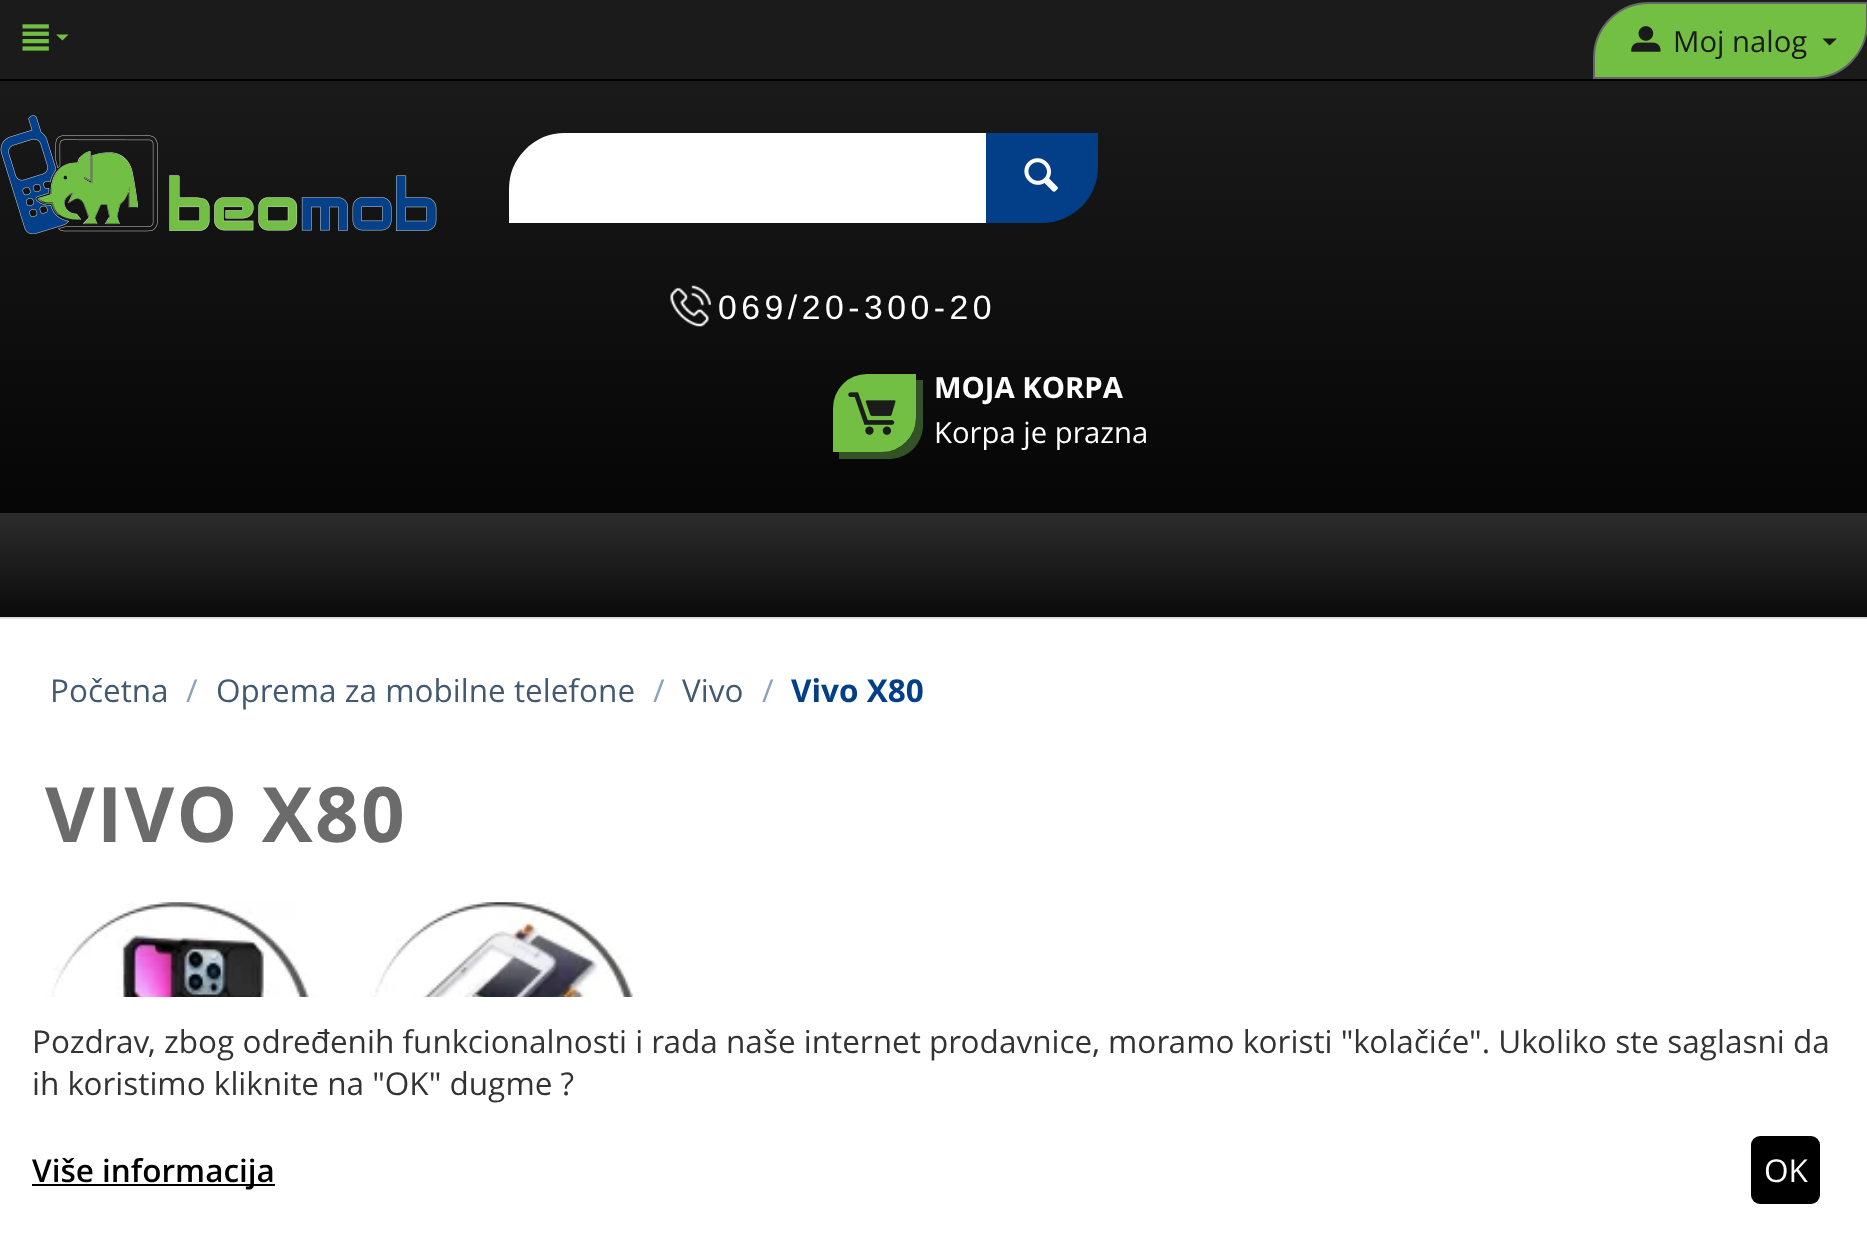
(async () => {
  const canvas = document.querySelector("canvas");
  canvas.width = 1867;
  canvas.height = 1234;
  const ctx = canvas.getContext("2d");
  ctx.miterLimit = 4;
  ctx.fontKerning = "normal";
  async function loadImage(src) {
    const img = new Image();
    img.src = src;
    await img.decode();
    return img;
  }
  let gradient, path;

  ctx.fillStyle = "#ffffff";
  ctx.fillRect(0, 0, 1867, 1234);
  ctx.fillStyle = "#1b1b1b";
  ctx.fillRect(0, 0, 1867, 79);
  ctx.fillStyle = "#000000";
  ctx.fillRect(0, 79, 1867, 2);
  ctx.drawImage(await loadImage("img/1.png"), 22, 24, 27, 27);
  ctx.fillStyle = "#72bf45";
  path = new Path2D("M62.5 40.5L56 34.5H68.5Z");
  ctx.fill(path);
  ctx.fillStyle = "#72bf44";
  path = new Path2D("M1649 3H1867V23C1867 53.5 1842.5 78 1812 78H1594V58C1594 27.5 1618.5 3 1649 3Z");
  ctx.fill(path);
  ctx.strokeStyle = "#666666";
  ctx.lineWidth = 2;
  ctx.stroke(path);
  ctx.drawImage(await loadImage("img/2.png"), 1631, 26, 30, 26);
  ctx.fillStyle = "#1b1b1b";
  path = new Path2D("M1829.5 45.5L1822.5 38.5H1837Z");
  ctx.fill(path);
  gradient = ctx.createLinearGradient(934, 81, 934, 619);
  gradient.addColorStop(0, "#1a1a1a");
  gradient.addColorStop(1, "#000000");
  ctx.fillStyle = gradient;
  ctx.fillRect(0, 81, 1867, 432);
  ctx.drawImage(await loadImage("img/3.png"), 0, 115, 437, 119);
  ctx.fillStyle = "#ffffff";
  ctx.beginPath();
  ctx.roundRect(510, 134, 508, 88, [55, 0, 0, 0]);
  ctx.fill();
  ctx.strokeStyle = "#ffffff";
  ctx.stroke();
  ctx.fillStyle = "#023f88";
  ctx.beginPath();
  ctx.roundRect(986, 133, 112, 90, [0, 0, 56, 0]);
  ctx.fill();
  ctx.drawImage(await loadImage("img/4.png"), 1024, 158, 34, 34);
  ctx.drawImage(await loadImage("img/5.png"), 670, 285, 41, 42);
  ctx.fillStyle = "#345228";
  path = new Path2D("M839 452V459H889C908 459 923 444 923 425V380H916V418C916 437 901 452 882 452Z");
  ctx.fill(path);
  ctx.fillStyle = "#72bf44";
  ctx.beginPath();
  ctx.roundRect(833, 374, 83, 78, [34, 0, 34, 0]);
  ctx.fill();
  ctx.drawImage(await loadImage("img/6.png"), 848, 392, 48, 43);
  gradient = ctx.createLinearGradient(934, 617, 934, 513);
  gradient.addColorStop(0, "#000000");
  gradient.addColorStop(0, "#0a0a0a");
  gradient.addColorStop(1, "#2d2d2d");
  ctx.fillStyle = gradient;
  ctx.fillRect(0, 513, 1867, 104);
  ctx.fillStyle = "#dedede";
  ctx.fillRect(0, 617, 1867, 2);
  ctx.drawImage(await loadImage("img/7.png"), 45, 902, 270, 95);
  ctx.drawImage(await loadImage("img/8.png"), 369, 902, 270, 95);
  ctx.fillStyle = "#000000";
  ctx.fillRect(32, 1184, 243, 2);
  ctx.beginPath();
  ctx.roundRect(1751, 1136, 69, 68, 9);
  ctx.fill();
  ctx.font = "29.25px Open Sans";
  ctx.fillStyle = "#1b1b1b";
  ctx.fillText("Moj nalog", 1673, 52);
  ctx.letterSpacing = "4.5px";
  ctx.font = "33.75px Liberation Sans";
  ctx.fillStyle = "#ffffff";
  ctx.fillText("069/20-300-20", 718, 319);
  ctx.letterSpacing = "0px";
  ctx.font = "bold 29.25px Open Sans";
  ctx.fillText("MOJA KORPA", 934, 398);
  ctx.font = "29.25px Open Sans";
  ctx.fillText("Korpa je prazna", 934, 443);
  ctx.font = "31.5px Open Sans";
  ctx.fillStyle = "#435970";
  ctx.fillText("Početna", 50, 702);
  ctx.fillStyle = "#8ca3ba";
  ctx.fillText("/", 186, 702);
  ctx.fillStyle = "#435970";
  ctx.fillText("Oprema za mobilne telefone", 216, 702);
  ctx.fillStyle = "#8ca3ba";
  ctx.fillText("/", 653, 702);
  ctx.fillStyle = "#435970";
  ctx.fillText("Vivo", 682, 702);
  ctx.fillStyle = "#8ca3ba";
  ctx.fillText("/", 762, 702);
  ctx.font = "bold 31.5px Open Sans";
  ctx.fillStyle = "#023f88";
  ctx.fillText("Vivo X80", 791, 702);
  ctx.letterSpacing = "2.25px";
  ctx.font = "bold 76.5px Open Sans";
  ctx.fillStyle = "#6c6b6b";
  ctx.fillText("VIVO X80", 45, 842);
  ctx.letterSpacing = "0px";
  ctx.font = "31.5px Open Sans";
  ctx.fillStyle = "#333333";
  ctx.fillText("Pozdrav, zbog određenih funkcionalnosti i rada naše internet prodavnice, moramo koristi \"kolačiće\". Ukoliko ste saglasni da", 32, 1053);
  ctx.fillText("ih koristimo kliknite na \"OK\" dugme ?", 32, 1095);
  ctx.font = "600 31.5px Open Sans";
  ctx.fillStyle = "#000000";
  ctx.fillText("Više informacija", 32, 1182);
  ctx.font = "31.5px Open Sans";
  ctx.fillStyle = "#ffffff";
  ctx.fillText("OK", 1764, 1182);
})();
